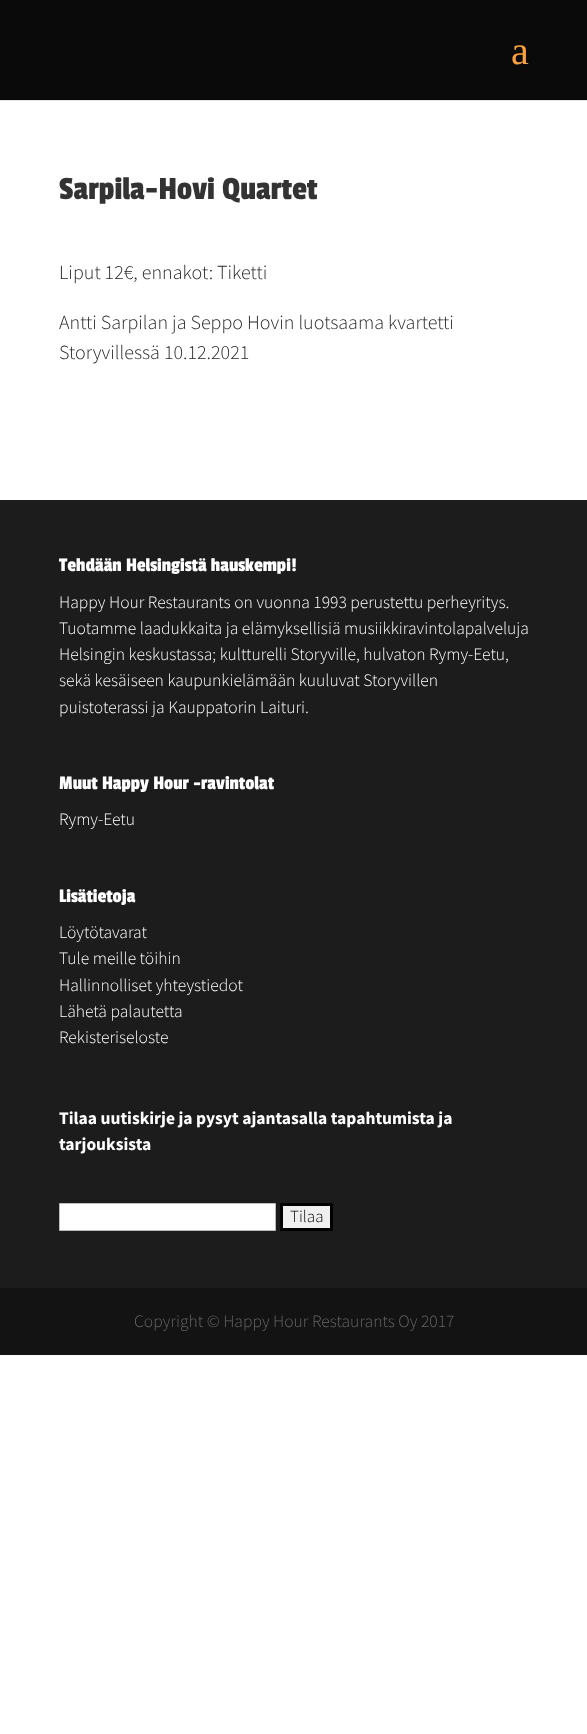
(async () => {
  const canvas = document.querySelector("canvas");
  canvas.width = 587;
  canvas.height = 1734;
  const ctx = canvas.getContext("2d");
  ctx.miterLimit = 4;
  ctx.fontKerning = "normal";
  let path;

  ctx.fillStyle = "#ffffff";
  ctx.fillRect(0, 0, 587, 1734);
  ctx.fillStyle = "#e6e6e6";
  path = new Path2D("M0 100V101H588V1V100Z");
  ctx.fill(path);
  ctx.fillStyle = "#0a0a0a";
  ctx.fillRect(0, 0, 587, 100);
  ctx.fillStyle = "#1c1c1c";
  ctx.fillRect(0, 500, 587, 788);
  ctx.fillStyle = "#ffffff";
  ctx.beginPath();
  ctx.rect(59.5, 1203.5, 216, 27);
  ctx.fill();
  ctx.strokeStyle = "#bbbbbb";
  ctx.stroke();
  ctx.fillStyle = "#efefef";
  ctx.beginPath();
  ctx.rect(281.5, 1204.5, 50, 25);
  ctx.fill();
  ctx.strokeStyle = "#000000";
  ctx.lineWidth = 3;
  ctx.stroke();
  ctx.fillStyle = "#131313";
  ctx.fillRect(0, 1288, 587, 67);
  ctx.font = "40px Liberation Serif";
  ctx.fillStyle = "#f9a140";
  ctx.fillText("a", 511, 64);
  ctx.font = "33.75px Passion One";
  ctx.fillStyle = "#333333";
  ctx.fillText("Sarpila-Hovi Quartet", 59, 199);
  ctx.font = "300 20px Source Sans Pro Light";
  ctx.fillStyle = "#262626";
  for (const [text, x, y] of [
    ["Liput 12€, ennakot: Tiketti", 59, 279],
    ["Antti Sarpilan ja Seppo Hovin luotsaama kvartetti", 59, 329],
    ["Storyvillessä 10.12.2021", 59, 359],
  ]) {
    ctx.fillText(text, x, y);
  }
  ctx.font = "20px Passion One";
  ctx.fillStyle = "#ffffff";
  ctx.fillText("Tehdään Helsingistä hauskempi!", 59, 571);
  ctx.font = "300 17.5px Source Sans Pro Light";
  for (const [text, x, y] of [
    ["Happy Hour Restaurants on vuonna 1993 perustettu perheyritys.", 59, 608],
    ["Tuotamme laadukkaita ja elämyksellisiä musiikkiravintolapalveluja", 59, 634],
    ["Helsingin keskustassa; kultturelli Storyville, hulvaton Rymy-Eetu,", 59, 660],
    ["sekä kesäiseen kaupunkielämään kuuluvat Storyvillen", 59, 686],
    ["puistoterassi ja Kauppatorin Laituri.", 59, 713],
  ]) {
    ctx.fillText(text, x, y);
  }
  ctx.font = "20px Passion One";
  ctx.fillText("Muut Happy Hour -ravintolat", 59, 789);
  ctx.font = "300 17.5px Source Sans Pro Light";
  ctx.fillText("Rymy-Eetu", 59, 825);
  ctx.font = "20px Passion One";
  ctx.fillText("Lisätietoja", 59, 902);
  ctx.font = "300 17.5px Source Sans Pro Light";
  for (const [text, x, y] of [
    ["Löytötavarat", 59, 938],
    ["Tule meille töihin", 59, 964],
    ["Hallinnolliset yhteystiedot", 59, 991],
    ["Lähetä palautetta", 59, 1017],
    ["Rekisteriseloste", 59, 1043],
  ]) {
    ctx.fillText(text, x, y);
  }
  ctx.font = "bold 17.5px Source Sans Pro";
  ctx.fillText("Tilaa uutiskirje ja pysyt ajantasalla tapahtumista ja", 59, 1124);
  ctx.fillText("tarjouksista", 59, 1150);
  ctx.font = "300 17px Source Sans Pro Light";
  ctx.fillStyle = "#000000";
  ctx.fillText("Tilaa", 290, 1222);
  ctx.font = "300 17.5px Source Sans Pro Light";
  ctx.fillStyle = "#666666";
  ctx.fillText("Copyright © Happy Hour Restaurants Oy 2017", 134, 1327);
})();
